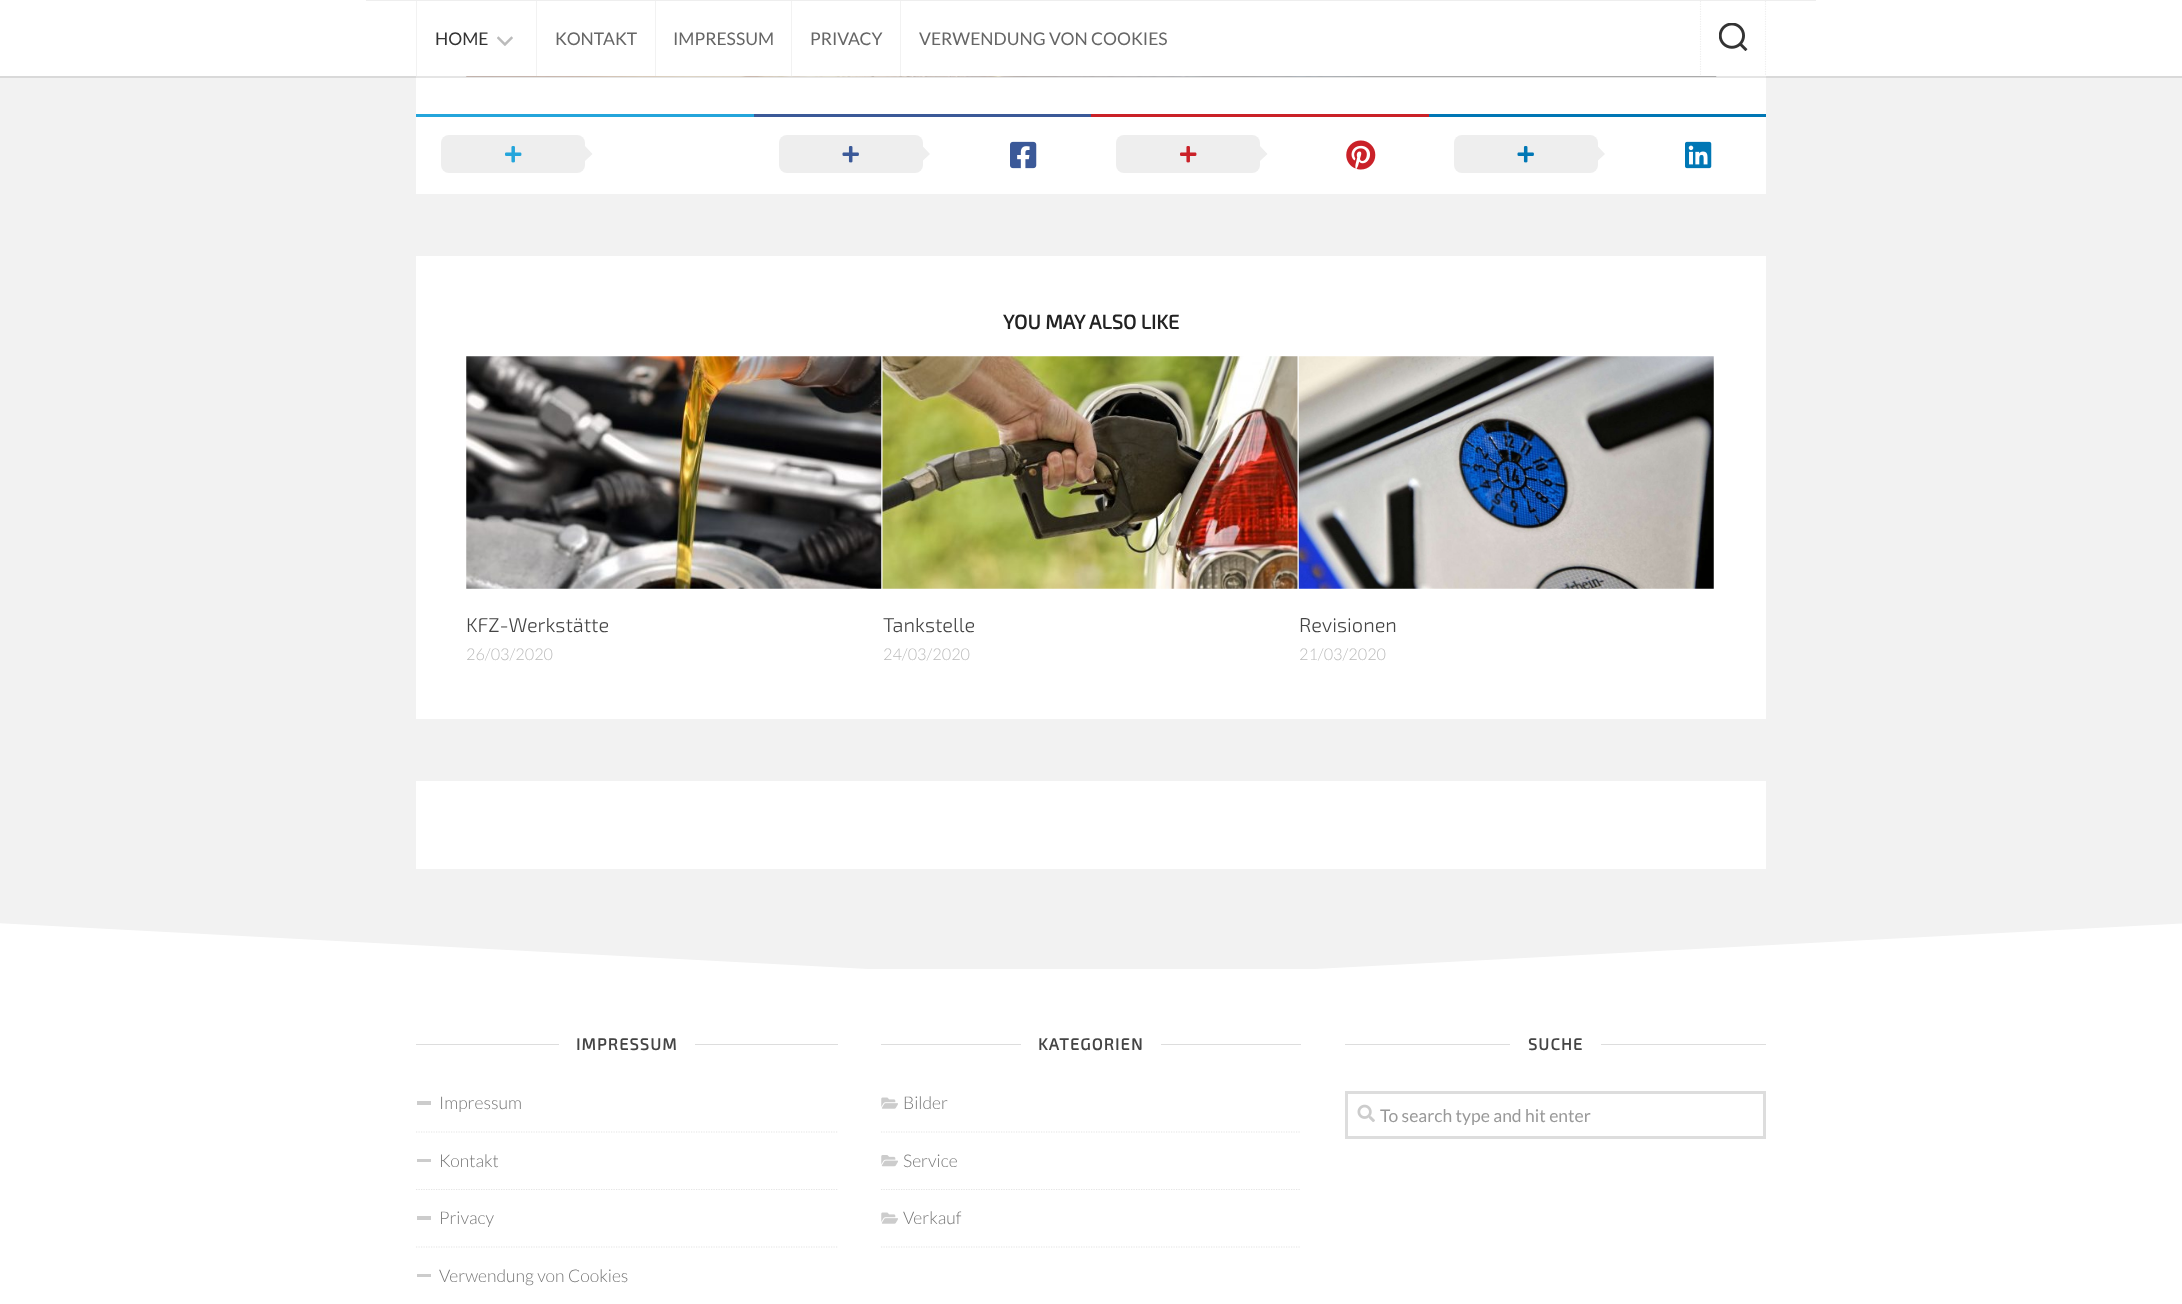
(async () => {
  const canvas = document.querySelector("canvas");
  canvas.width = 2182;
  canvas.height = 1304;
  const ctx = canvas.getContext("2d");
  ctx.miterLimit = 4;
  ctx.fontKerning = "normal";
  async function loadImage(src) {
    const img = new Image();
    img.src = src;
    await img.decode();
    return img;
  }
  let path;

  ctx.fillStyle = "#f2f2f2";
  ctx.fillRect(0, 0, 2182, 1304);
  ctx.fillStyle = "#ffffff";
  ctx.fillRect(416, 76, 1350, 118);
  ctx.drawImage(await loadImage("img/3.png"), 466, 76, 1251, 1);
  ctx.fillStyle = "rgba(0, 0, 0, 0.1)";
  path = new Path2D("M0 76V78H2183V1H2182V76Z");
  ctx.fill(path);
  for (const [x, y, w, h, color] of [
    [0, 0, 2182, 76, "#ffffff"],
    [366, 0, 1450, 1, "#eeeeee"],
    [416, 1, 1, 75, "#f2f2f2"],
  ]) {
    ctx.fillStyle = color;
    ctx.fillRect(x, y, w, h);
  }
  ctx.drawImage(await loadImage("img/1.png"), 497, 36, 16, 10);
  for (const [x, y, w, h, color] of [
    [536, 1, 1, 75, "#f2f2f2"],
    [655, 1, 1, 75, "#f2f2f2"],
    [791, 1, 1, 75, "#f2f2f2"],
    [900, 1, 1, 75, "#f2f2f2"],
  ]) {
    ctx.fillStyle = color;
    ctx.fillRect(x, y, w, h);
  }
  path = new Path2D("M1765.5 1V76");
  ctx.strokeStyle = "#eeeeee";
  ctx.lineWidth = 1.2;
  ctx.setLineDash([1.25, 1.25]);
  ctx.stroke(path);
  path = new Path2D("M1700.5 1V76");
  ctx.stroke(path);
  ctx.drawImage(await loadImage("img/2.png"), 1719, 23, 29, 28);
  ctx.fillStyle = "#24a5db";
  ctx.fillRect(416, 114, 338, 3);
  ctx.fillStyle = "#eeeeee";
  ctx.beginPath();
  ctx.roundRect(441, 135, 144, 38, 8);
  ctx.fill();
  ctx.drawImage(await loadImage("img/4.png"), 505, 146, 17, 17);
  path = new Path2D("M585 161V146L592.5 154Z");
  ctx.fill(path);
  ctx.fillStyle = "#3b5998";
  ctx.fillRect(754, 114, 337, 3);
  ctx.fillStyle = "#eeeeee";
  ctx.beginPath();
  ctx.roundRect(779, 135, 144, 38, 8);
  ctx.fill();
  ctx.drawImage(await loadImage("img/5.png"), 842, 146, 17, 17);
  path = new Path2D("M922.5 161V146L930 154Z");
  ctx.fill(path);
  ctx.drawImage(await loadImage("img/6.png"), 1010, 141, 27, 28);
  ctx.fillStyle = "#ca2128";
  ctx.fillRect(1091, 114, 338, 3);
  ctx.fillStyle = "#eeeeee";
  ctx.beginPath();
  ctx.roundRect(1116, 135, 144, 38, 8);
  ctx.fill();
  ctx.drawImage(await loadImage("img/7.png"), 1180, 146, 17, 17);
  path = new Path2D("M1260 161V146L1267.5 154Z");
  ctx.fill(path);
  ctx.drawImage(await loadImage("img/8.png"), 1346, 140, 30, 30);
  ctx.fillStyle = "#0077b5";
  ctx.fillRect(1429, 114, 337, 3);
  ctx.fillStyle = "#eeeeee";
  ctx.beginPath();
  ctx.roundRect(1454, 135, 144, 38, 8);
  ctx.fill();
  ctx.drawImage(await loadImage("img/9.png"), 1517, 146, 17, 17);
  path = new Path2D("M1597.5 161V146L1605 154Z");
  ctx.fill(path);
  ctx.drawImage(await loadImage("img/10.png"), 1685, 141, 27, 28);
  ctx.fillStyle = "#ffffff";
  ctx.fillRect(416, 256, 1350, 463);
  ctx.drawImage(await loadImage("img/11.png"), 466, 356, 416, 233);
  ctx.drawImage(await loadImage("img/12.png"), 882, 356, 416, 233);
  ctx.drawImage(await loadImage("img/13.png"), 1298, 356, 416, 233);
  ctx.fillRect(416, 781, 1350, 88);
  ctx.fillRect(0, 969, 2182, 335);
  path = new Path2D("M-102 918L1096 981L1093 1041L-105 978Z");
  ctx.fill(path);
  path = new Path2D("M1086 981L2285 918L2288 978L1089 1041Z");
  ctx.fill(path);
  ctx.fillStyle = "#dddddd";
  ctx.fillRect(416, 1044, 422, 1);
  ctx.fillStyle = "#ffffff";
  ctx.fillRect(559, 1044, 136, 1);
  path = new Path2D("M416 1132H837.5");
  ctx.strokeStyle = "#e4e4e4";
  ctx.stroke(path);
  ctx.fillStyle = "#cccccc";
  ctx.fillRect(417, 1101, 14, 4);
  path = new Path2D("M416 1189.5H837.5");
  ctx.stroke(path);
  ctx.fillRect(417, 1159, 14, 3);
  path = new Path2D("M416 1247H837.5");
  ctx.stroke(path);
  ctx.fillRect(417, 1216, 14, 4);
  path = new Path2D("M416 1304.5H837.5");
  ctx.stroke(path);
  for (const [x, y, w, h, color] of [
    [417, 1274, 14, 3, "#cccccc"],
    [881, 1044, 420, 1, "#dddddd"],
    [1021, 1044, 140, 1, "#ffffff"],
  ]) {
    ctx.fillStyle = color;
    ctx.fillRect(x, y, w, h);
  }
  path = new Path2D("M881 1132H1301");
  ctx.stroke(path);
  ctx.drawImage(await loadImage("img/14.png"), 881, 1097, 17, 12);
  path = new Path2D("M881 1189.5H1301");
  ctx.stroke(path);
  ctx.drawImage(await loadImage("img/15.png"), 881, 1155, 17, 12);
  path = new Path2D("M881 1247H1301");
  ctx.stroke(path);
  ctx.drawImage(await loadImage("img/14.png"), 881, 1212, 17, 12);
  ctx.fillStyle = "#dddddd";
  ctx.fillRect(1345, 1044, 421, 1);
  ctx.fillStyle = "#ffffff";
  ctx.fillRect(1510, 1044, 91, 1);
  ctx.strokeStyle = "#dddddd";
  ctx.lineWidth = 3;
  ctx.setLineDash([]);
  ctx.strokeRect(1346.5, 1092.5, 418, 45);
  ctx.drawImage(await loadImage("img/16.png"), 1357, 1104, 18, 18);
  ctx.font = "17.5px Lato";
  ctx.fillStyle = "#333333";
  ctx.fillText("HOME", 435, 45);
  ctx.fillStyle = "#666666";
  for (const [text, x, y] of [
    ["KONTAKT", 555, 45],
    ["IMPRESSUM", 673, 45],
    ["PRIVACY", 810, 45],
    ["VERWENDUNG VON COOKIES", 919, 45],
  ]) {
    ctx.fillText(text, x, y);
  }
  ctx.font = "bold 20px 'Exo 2'";
  ctx.fillStyle = "#222222";
  ctx.fillText("YOU MAY ALSO LIKE", 1003, 329);
  ctx.font = "300 20px 'Exo 2'";
  ctx.fillStyle = "#444444";
  ctx.fillText("KFZ-Werkstätte", 466, 632);
  ctx.font = "300 16.25px Lato";
  ctx.fillStyle = "#bbbbbb";
  ctx.fillText("26/03/2020", 466, 660);
  ctx.font = "300 20px 'Exo 2'";
  ctx.fillStyle = "#444444";
  ctx.fillText("Tankstelle", 883, 632);
  ctx.font = "300 16.25px Lato";
  ctx.fillStyle = "#bbbbbb";
  ctx.fillText("24/03/2020", 883, 660);
  ctx.font = "300 20px 'Exo 2'";
  ctx.fillStyle = "#444444";
  ctx.fillText("Revisionen", 1299, 632);
  ctx.font = "300 16.25px Lato";
  ctx.fillStyle = "#bbbbbb";
  ctx.fillText("21/03/2020", 1299, 660);
  ctx.letterSpacing = "1.25px";
  ctx.font = "bold 16.25px 'Exo 2'";
  ctx.fillStyle = "#444444";
  ctx.fillText("IMPRESSUM", 576, 1050);
  ctx.letterSpacing = "0px";
  ctx.font = "300 17.5px Lato";
  ctx.fillStyle = "#777777";
  for (const [text, x, y] of [
    ["Impressum", 439, 1109],
    ["Kontakt", 439, 1167],
    ["Privacy", 439, 1224],
    ["Verwendung von Cookies", 439, 1282],
  ]) {
    ctx.fillText(text, x, y);
  }
  ctx.letterSpacing = "1.25px";
  ctx.font = "bold 16.25px 'Exo 2'";
  ctx.fillStyle = "#444444";
  ctx.fillText("KATEGORIEN", 1038, 1050);
  ctx.letterSpacing = "0px";
  ctx.font = "300 17.5px Lato";
  ctx.fillStyle = "#777777";
  for (const [text, x, y] of [
    ["Bilder", 903, 1109],
    ["Service", 903, 1167],
    ["Verkauf", 903, 1224],
  ]) {
    ctx.fillText(text, x, y);
  }
  ctx.letterSpacing = "1.25px";
  ctx.font = "bold 16.25px 'Exo 2'";
  ctx.fillStyle = "#444444";
  ctx.fillText("SUCHE", 1528, 1050);
  ctx.letterSpacing = "0px";
  ctx.font = "17.5px Lato";
  ctx.fillStyle = "#999999";
  ctx.fillText("To search type and hit enter", 1380, 1122);
})();
